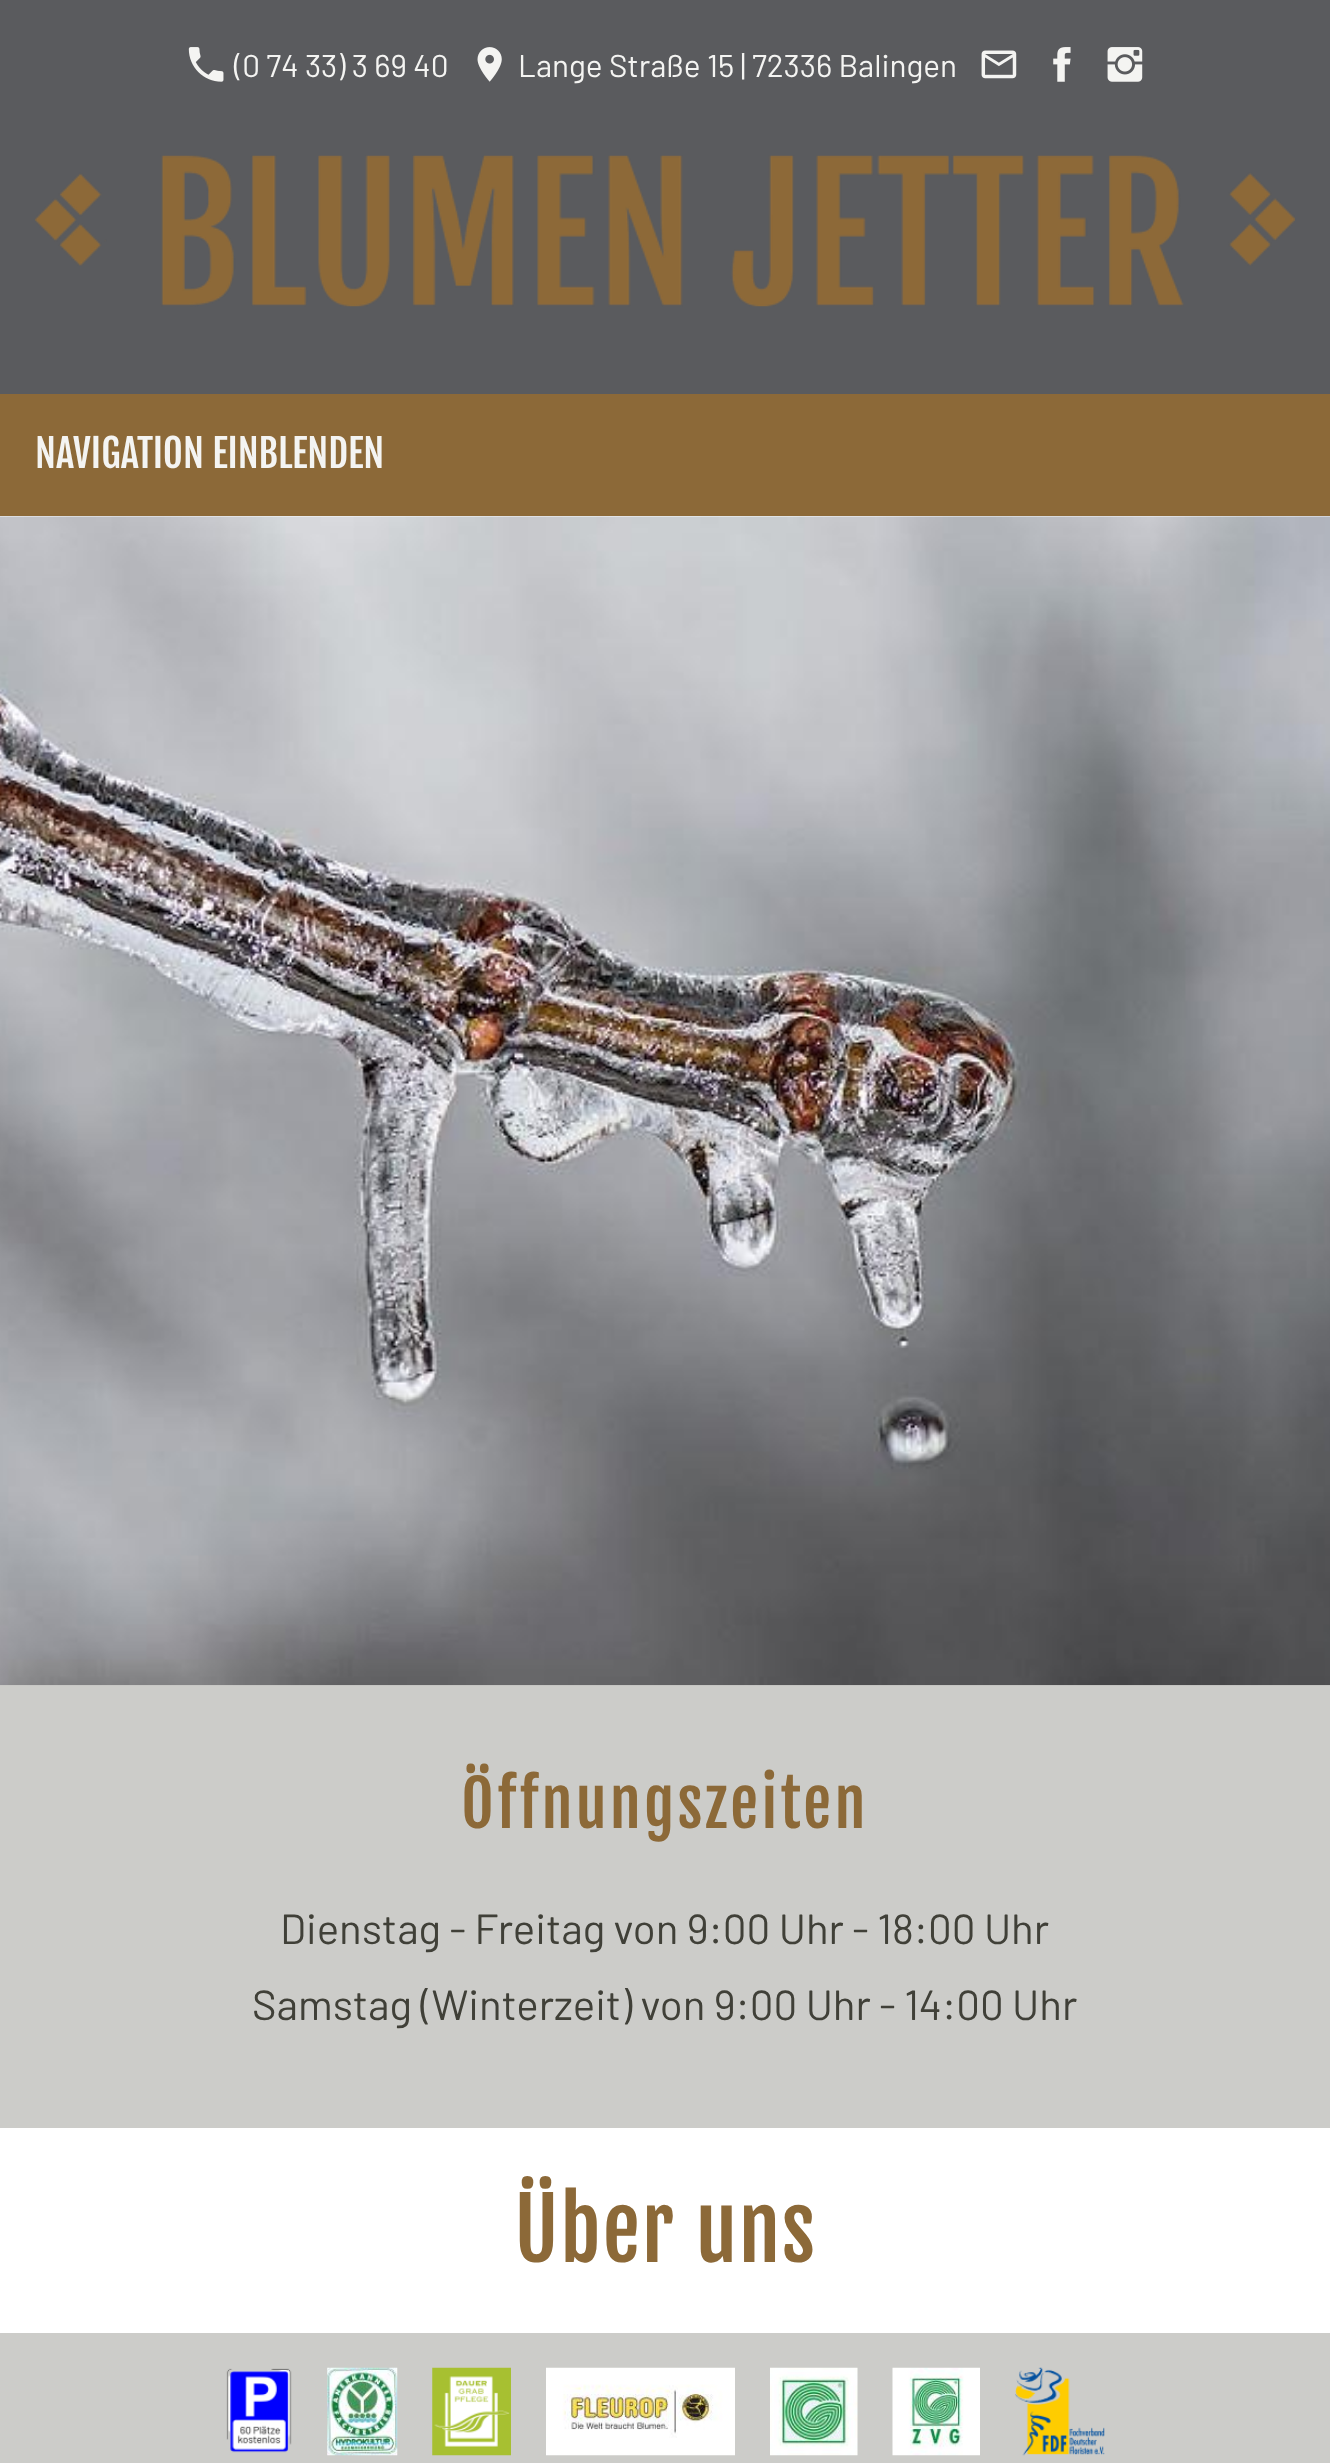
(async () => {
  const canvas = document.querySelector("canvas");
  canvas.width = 1330;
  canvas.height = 2463;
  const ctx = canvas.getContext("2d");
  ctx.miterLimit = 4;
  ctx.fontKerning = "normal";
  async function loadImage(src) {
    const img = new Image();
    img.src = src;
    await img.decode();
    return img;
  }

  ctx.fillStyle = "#ffffff";
  ctx.fillRect(0, 0, 1330, 2463);
  ctx.fillStyle = "#5a5b5e";
  ctx.fillRect(0, 0, 1330, 394);
  ctx.drawImage(await loadImage("img/1.png"), 188, 47, 36, 35);
  ctx.drawImage(await loadImage("img/2.png"), 477, 47, 25, 35);
  ctx.drawImage(await loadImage("img/3.png"), 981, 50, 36, 29);
  ctx.drawImage(await loadImage("img/4.png"), 1053, 47, 18, 35);
  ctx.drawImage(await loadImage("img/5.png"), 1107, 47, 36, 35);
  ctx.drawImage(await loadImage("img/6.png"), 35, 155, 1260, 152);
  ctx.fillStyle = "#8c6938";
  ctx.fillRect(0, 394, 1330, 122);
  ctx.fillStyle = "#ccccc9";
  ctx.fillRect(0, 1685, 1330, 443);
  ctx.drawImage(await loadImage("img/7.png"), 0, 516, 1330, 1170);
  ctx.fillRect(0, 2333, 1330, 130);
  ctx.drawImage(await loadImage("img/8.png"), 226, 2368, 66, 85);
  ctx.drawImage(await loadImage("img/9.png"), 327, 2367, 71, 89);
  ctx.drawImage(await loadImage("img/10.png"), 432, 2367, 79, 89);
  ctx.drawImage(await loadImage("img/11.png"), 546, 2367, 189, 89);
  ctx.drawImage(await loadImage("img/12.png"), 770, 2367, 88, 89);
  ctx.drawImage(await loadImage("img/13.png"), 892, 2367, 88, 89);
  ctx.drawImage(await loadImage("img/14.png"), 1015, 2367, 90, 89);
  ctx.font = "31.5px Barlow";
  ctx.fillStyle = "#f4f4f2";
  ctx.fillText("(0 74 33) 3 69 40", 234, 77);
  ctx.fillText("Lange Straße 15 | 72336 Balingen", 518, 77);
  ctx.font = "38.5px Fjalla One";
  ctx.fillText("NAVIGATION EINBLENDEN", 35, 468);
  ctx.letterSpacing = "3.25px";
  ctx.font = "63px Fjalla One";
  ctx.fillStyle = "#8c6938";
  ctx.fillText("Öffnungszeiten", 461, 1828);
  ctx.letterSpacing = "0px";
  ctx.font = "42px Barlow";
  ctx.fillStyle = "#404038";
  ctx.fillText("Dienstag - Freitag von 9:00 Uhr - 18:00 Uhr", 280, 1944);
  ctx.fillText("Samstag (Winterzeit) von 9:00 Uhr - 14:00 Uhr", 252, 2020);
  ctx.letterSpacing = "1.75px";
  ctx.font = "84px Fjalla One";
  ctx.fillStyle = "#8c6938";
  ctx.fillText("Über uns", 514, 2262);
})();
